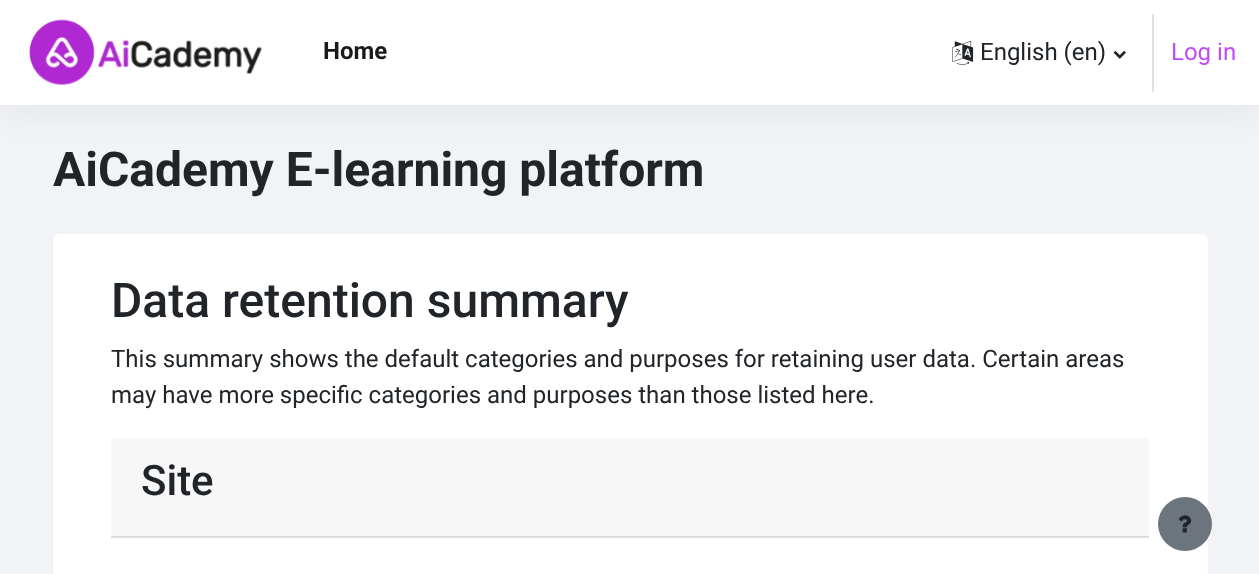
(async () => {
  const canvas = document.querySelector("canvas");
  canvas.width = 1259;
  canvas.height = 574;
  const ctx = canvas.getContext("2d");
  ctx.miterLimit = 4;
  ctx.fontKerning = "normal";
  async function loadImage(src) {
    const img = new Image();
    img.src = src;
    await img.decode();
    return img;
  }

  ctx.fillStyle = "#f2f3f7";
  ctx.fillRect(0, 0, 1259, 574);
  ctx.fillStyle = "rgba(140, 152, 164, 0.13)";
  ctx.filter = "blur(18px)";
  ctx.beginPath();
  ctx.rect(0, 9, 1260, 105);
  ctx.fill();
  ctx.filter = "none";
  ctx.fillStyle = "#ffffff";
  ctx.fillRect(0, 0, 1259, 105);
  ctx.drawImage(await loadImage("img/1.png"), 29, 19, 234, 66);
  ctx.drawImage(await loadImage("img/2.png"), 952, 41, 22, 24);
  ctx.drawImage(await loadImage("img/3.png"), 1113, 51, 13, 8);
  ctx.fillStyle = "#dee2e6";
  ctx.fillRect(1152, 14, 2, 78);
  ctx.fillStyle = "#ffffff";
  ctx.beginPath();
  ctx.roundRect(53, 234, 1155, 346, 6);
  ctx.fill();
  ctx.fillStyle = "rgba(0, 0, 0, 0.03)";
  ctx.fillRect(111, 438, 1038, 99);
  ctx.fillStyle = "rgba(0, 0, 0, 0.12)";
  ctx.fillRect(111, 536, 1038, 2);
  ctx.fillStyle = "#6c757d";
  ctx.beginPath();
  ctx.arc(1185, 524, 27, 0, Math.PI * 2);
  ctx.fill();
  ctx.drawImage(await loadImage("img/4.png"), 1178, 515, 14, 18);
  ctx.font = "bold 24px Roboto";
  ctx.fillStyle = "#1a1a1a";
  ctx.fillText("Home", 323, 59);
  ctx.font = "24px Roboto";
  ctx.fillStyle = "#212529";
  ctx.fillText("English (en)", 980, 60);
  ctx.fillStyle = "#c04cfb";
  ctx.fillText("Log in", 1171, 60);
  ctx.font = "bold 48px Roboto";
  ctx.fillStyle = "#212529";
  ctx.fillText("AiCademy E-learning platform", 53, 186);
  ctx.font = "500 48px Roboto";
  ctx.fillText("Data retention summary", 111, 317);
  ctx.font = "24px Roboto";
  ctx.fillText("This summary shows the default categories and purposes for retaining user data. Certain areas", 111, 367);
  ctx.fillText("may have more specific categories and purposes than those listed here.", 111, 403);
  ctx.font = "500 42px Roboto";
  ctx.fillText("Site", 141, 495);
})();
